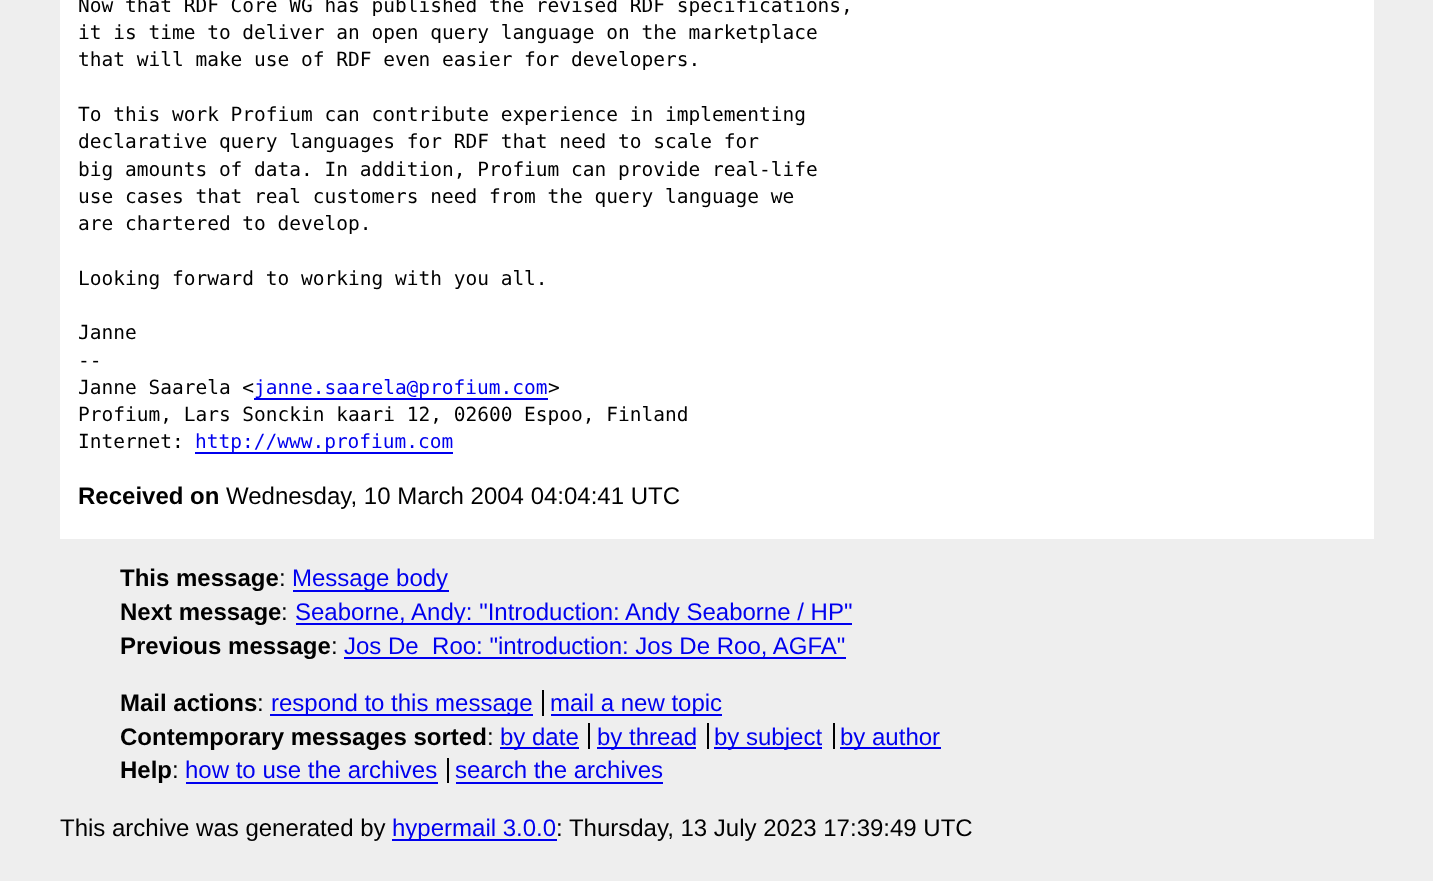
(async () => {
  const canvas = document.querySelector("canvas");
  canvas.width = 1433;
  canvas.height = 881;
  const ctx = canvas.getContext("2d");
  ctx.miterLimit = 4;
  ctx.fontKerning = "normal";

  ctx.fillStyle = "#eeeeee";
  ctx.fillRect(0, 0, 1433, 881);
  for (const [x, y, w, h, color] of [
    [60, 0, 1314, 539, "#ffffff"],
    [254, 398, 294, 2, "#0000ee"],
    [195, 452, 258, 2, "#0000ee"],
    [293, 590, 156, 2, "#0000ee"],
    [296, 623, 556, 2, "#0000ee"],
    [344, 657, 502, 2, "#0000ee"],
    [270, 714, 263, 2, "#0000ee"],
    [542, 690, 2, 26, "#000000"],
    [551, 714, 171, 2, "#0000ee"],
    [500, 747, 79, 2, "#0000ee"],
    [588, 723, 2, 26, "#000000"],
    [597, 747, 99, 2, "#0000ee"],
    [707, 723, 2, 26, "#000000"],
    [714, 747, 108, 2, "#0000ee"],
    [833, 723, 2, 26, "#000000"],
    [840, 747, 101, 2, "#0000ee"],
    [186, 782, 252, 2, "#0000ee"],
    [447, 758, 2, 25, "#000000"],
    [456, 782, 207, 2, "#0000ee"],
    [392, 839, 165, 2, "#0000ee"],
  ]) {
    ctx.fillStyle = color;
    ctx.fillRect(x, y, w, h);
  }
  ctx.font = "19.5px DejaVu Sans Mono";
  ctx.fillStyle = "#000000";
  for (const [text, x, y] of [
    ["Now that RDF Core WG has published the revised RDF specifications,", 78, 12],
    ["it is time to deliver an open query language on the marketplace", 78, 39],
    ["that will make use of RDF even easier for developers.", 78, 66],
    ["To this work Profium can contribute experience in implementing", 78, 121],
    ["declarative query languages for RDF that need to scale for", 78, 148],
    ["big amounts of data. In addition, Profium can provide real-life", 78, 176],
    ["use cases that real customers need from the query language we", 78, 203],
    ["are chartered to develop.", 78, 230],
    ["Looking forward to working with you all.", 78, 285],
    ["Janne", 78, 339],
    ["--", 78, 367],
    ["Janne Saarela <", 78, 394],
  ]) {
    ctx.fillText(text, x, y);
  }
  ctx.fillStyle = "#0000ee";
  ctx.fillText("janne.saarela@profium.com", 254, 394);
  ctx.fillStyle = "#000000";
  for (const [text, x, y] of [
    [">", 548, 394],
    ["Profium, Lars Sonckin kaari 12, 02600 Espoo, Finland", 78, 421],
    ["Internet:", 78, 448],
  ]) {
    ctx.fillText(text, x, y);
  }
  ctx.fillStyle = "#0000ee";
  ctx.fillText("http://www.profium.com", 195, 448);
  ctx.font = "bold 24px Liberation Sans";
  ctx.fillStyle = "#000000";
  ctx.fillText("Received on", 78, 504);
  ctx.font = "24px Liberation Sans";
  ctx.fillText("Wednesday, 10 March 2004 04:04:41 UTC", 226, 504);
  ctx.font = "bold 24px Liberation Sans";
  ctx.fillText("This message", 120, 586);
  ctx.font = "24px Liberation Sans";
  ctx.fillText(":", 279, 586);
  ctx.fillStyle = "#0000ee";
  ctx.fillText("Message body", 292, 586);
  ctx.font = "bold 24px Liberation Sans";
  ctx.fillStyle = "#000000";
  ctx.fillText("Next message", 120, 620);
  ctx.font = "24px Liberation Sans";
  ctx.fillText(":", 281, 620);
  ctx.fillStyle = "#0000ee";
  ctx.fillText("Seaborne, Andy: \"Introduction: Andy Seaborne / HP\"", 295, 620);
  ctx.font = "bold 24px Liberation Sans";
  ctx.fillStyle = "#000000";
  ctx.fillText("Previous message", 120, 654);
  ctx.font = "24px Liberation Sans";
  ctx.fillText(":", 331, 654);
  ctx.fillStyle = "#0000ee";
  ctx.fillText("Jos De_Roo: \"introduction: Jos De Roo, AGFA\"", 344, 654);
  ctx.font = "bold 24px Liberation Sans";
  ctx.fillStyle = "#000000";
  ctx.fillText("Mail actions", 120, 711);
  ctx.font = "24px Liberation Sans";
  ctx.fillText(":", 257, 711);
  ctx.fillStyle = "#0000ee";
  ctx.fillText("respond to this message", 271, 711);
  ctx.fillText("mail a new topic", 550, 711);
  ctx.font = "bold 24px Liberation Sans";
  ctx.fillStyle = "#000000";
  ctx.fillText("Contemporary messages sorted", 120, 745);
  ctx.font = "24px Liberation Sans";
  ctx.fillText(":", 487, 745);
  ctx.fillStyle = "#0000ee";
  for (const [text, x, y] of [
    ["by date", 500, 745],
    ["by thread", 597, 745],
    ["by subject", 714, 745],
    ["by author", 840, 745],
  ]) {
    ctx.fillText(text, x, y);
  }
  ctx.font = "bold 24px Liberation Sans";
  ctx.fillStyle = "#000000";
  ctx.fillText("Help", 120, 778);
  ctx.font = "24px Liberation Sans";
  ctx.fillText(":", 172, 778);
  ctx.fillStyle = "#0000ee";
  ctx.fillText("how to use the archives", 185, 778);
  ctx.fillText("search the archives", 455, 778);
  ctx.fillStyle = "#000000";
  ctx.fillText("This archive was generated by", 60, 836);
  ctx.fillStyle = "#0000ee";
  ctx.fillText("hypermail 3.0.0", 392, 836);
  ctx.fillStyle = "#000000";
  ctx.fillText(": Thursday, 13 July 2023 17:39:49 UTC", 556, 836);
})();
